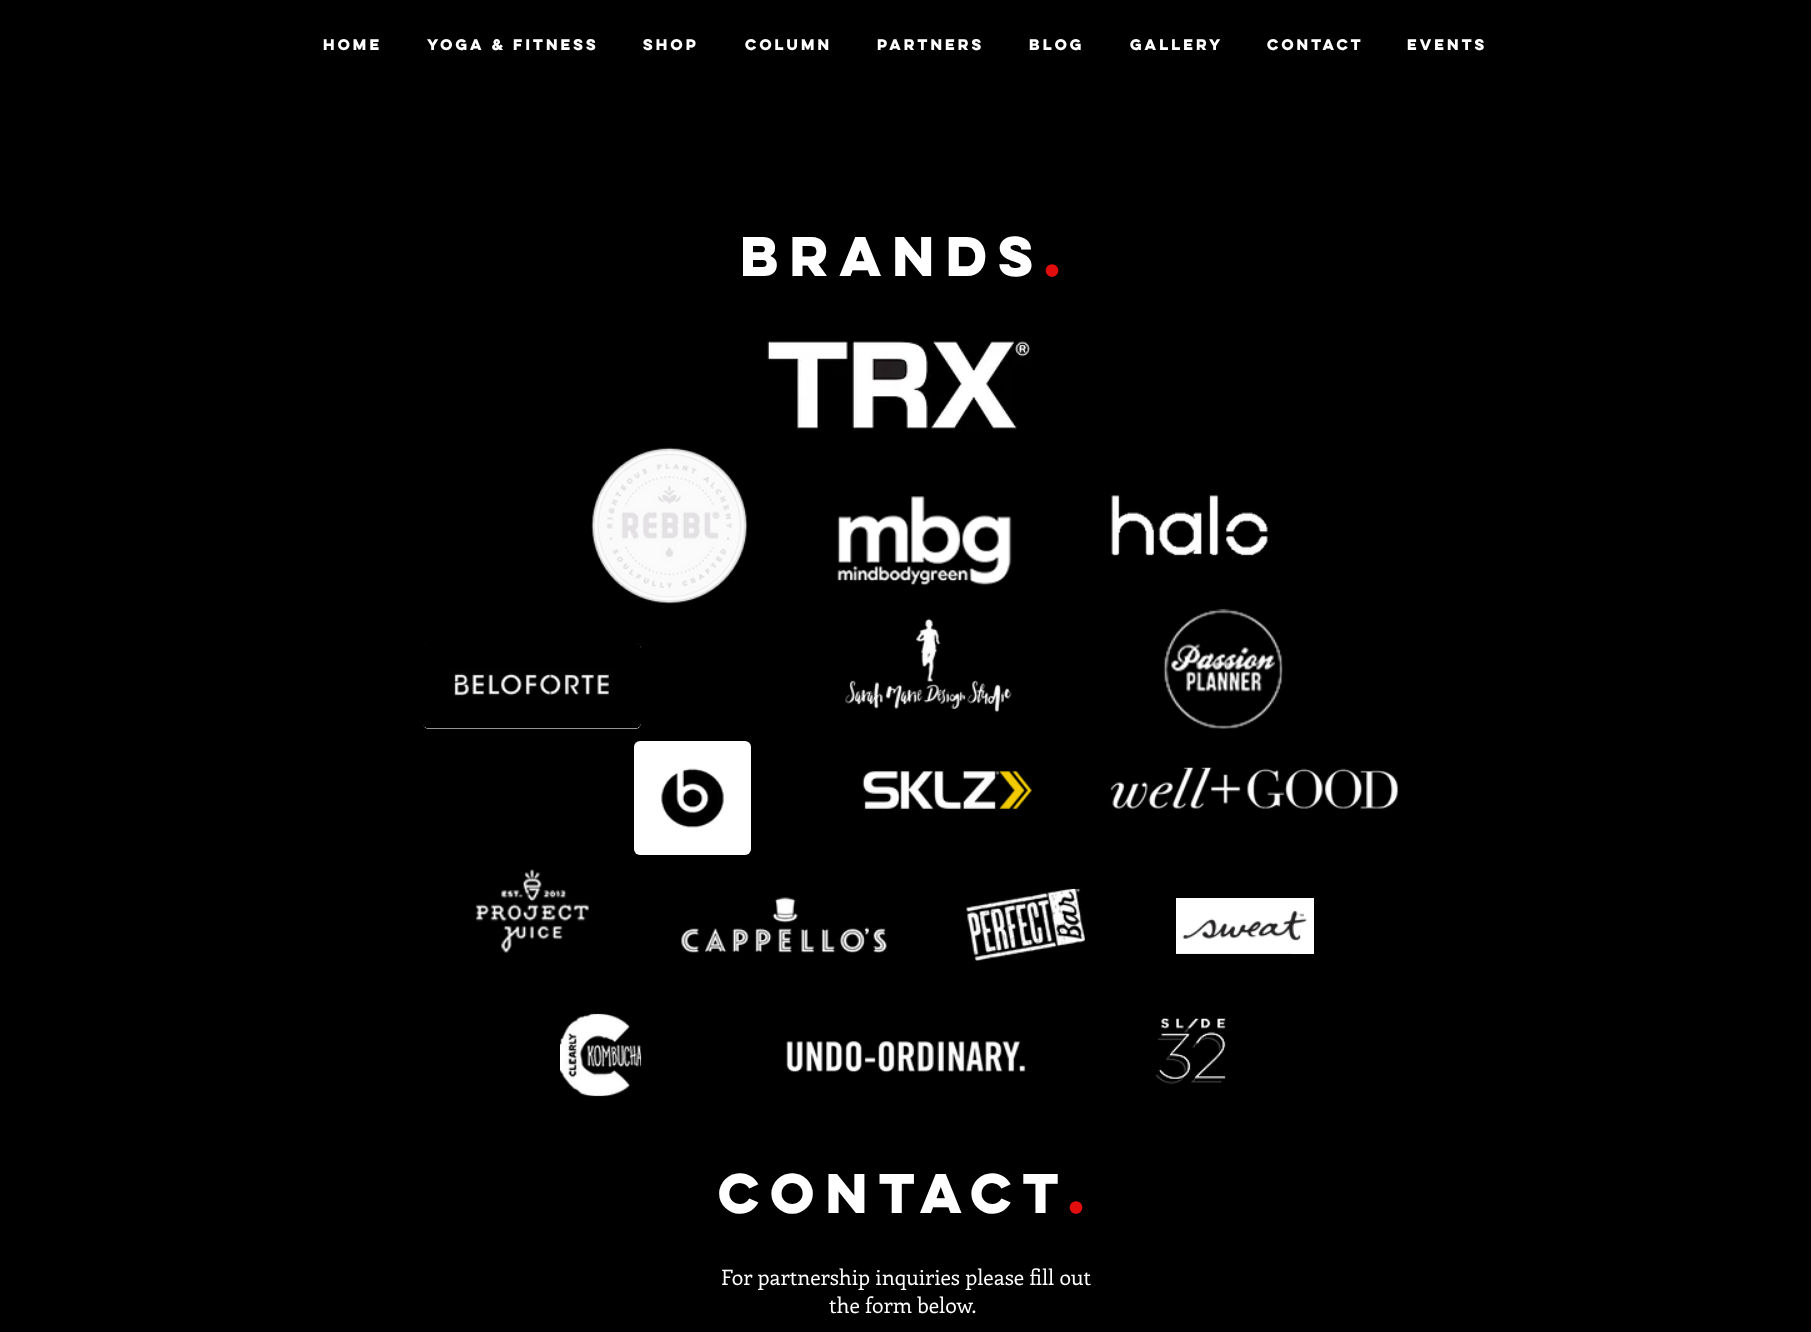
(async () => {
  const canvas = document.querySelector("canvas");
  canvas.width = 1811;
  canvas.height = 1332;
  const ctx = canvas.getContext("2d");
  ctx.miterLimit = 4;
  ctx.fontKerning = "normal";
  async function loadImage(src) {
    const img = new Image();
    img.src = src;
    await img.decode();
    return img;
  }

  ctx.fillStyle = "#000000";
  ctx.fillRect(0, 0, 1811, 1332);
  ctx.drawImage(await loadImage("img/1.png"), 767, 341, 264, 90);
  ctx.drawImage(await loadImage("img/2.png"), 591, 447, 157, 157);
  ctx.drawImage(await loadImage("img/3.png"), 837, 496, 175, 90);
  ctx.drawImage(await loadImage("img/4.png"), 1111, 494, 157, 62);
  ctx.fillStyle = "#ffffff";
  ctx.beginPath();
  ctx.roundRect(423, 643, 218, 86, 6);
  ctx.fill();
  ctx.drawImage(await loadImage("img/5.png"), 423, 643, 218, 86);
  ctx.drawImage(await loadImage("img/6.png"), 845, 618, 167, 95);
  ctx.drawImage(await loadImage("img/7.png"), 1163, 608, 120, 121);
  ctx.beginPath();
  ctx.roundRect(634, 741, 117, 114, 6);
  ctx.fill();
  ctx.drawImage(await loadImage("img/8.png"), 661, 768, 63, 60);
  ctx.drawImage(await loadImage("img/9.png"), 862, 770, 171, 40);
  ctx.drawImage(await loadImage("img/10.png"), 1110, 767, 289, 42);
  ctx.drawImage(await loadImage("img/11.png"), 475, 869, 114, 84);
  ctx.drawImage(await loadImage("img/12.png"), 681, 897, 207, 56);
  ctx.drawImage(await loadImage("img/13.png"), 966, 888, 119, 73);
  ctx.fillRect(1176, 898, 138, 56);
  ctx.drawImage(await loadImage("img/14.png"), 1182, 910, 125, 31);
  ctx.drawImage(await loadImage("img/15.png"), 560, 1013, 82, 84);
  ctx.drawImage(await loadImage("img/16.png"), 786, 1041, 240, 32);
  ctx.drawImage(await loadImage("img/17.png"), 1155, 953, 136, 131);
  ctx.font = "bold 13.75px 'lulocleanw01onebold'";
  for (const [text, x, y] of [
    ["Home", 323, 50],
    ["Yoga & Fitness", 427, 50],
    ["SHOP", 643, 50],
    ["column", 745, 50],
    ["Partners", 877, 50],
    ["blog", 1029, 50],
    ["Gallery", 1130, 50],
    ["Contact", 1267, 50],
    ["Events", 1407, 50],
  ]) {
    ctx.fillText(text, x, y);
  }
  ctx.font = "bold 50px 'lulocleanw01onebold'";
  ctx.fillText("BRANDs", 740, 276);
  ctx.fillStyle = "#e20d0d";
  ctx.fillText(".", 1044, 276);
  ctx.fillStyle = "#ffffff";
  ctx.fillText("Contact", 718, 1213);
  ctx.fillStyle = "#e20d0d";
  ctx.fillText(".", 1068, 1213);
  ctx.font = "21.25px Enriqueta";
  ctx.fillStyle = "#ffffff";
  ctx.fillText("For partnership inquiries please fill out", 721, 1285);
  ctx.fillText("the form below.", 829, 1313);
})();
